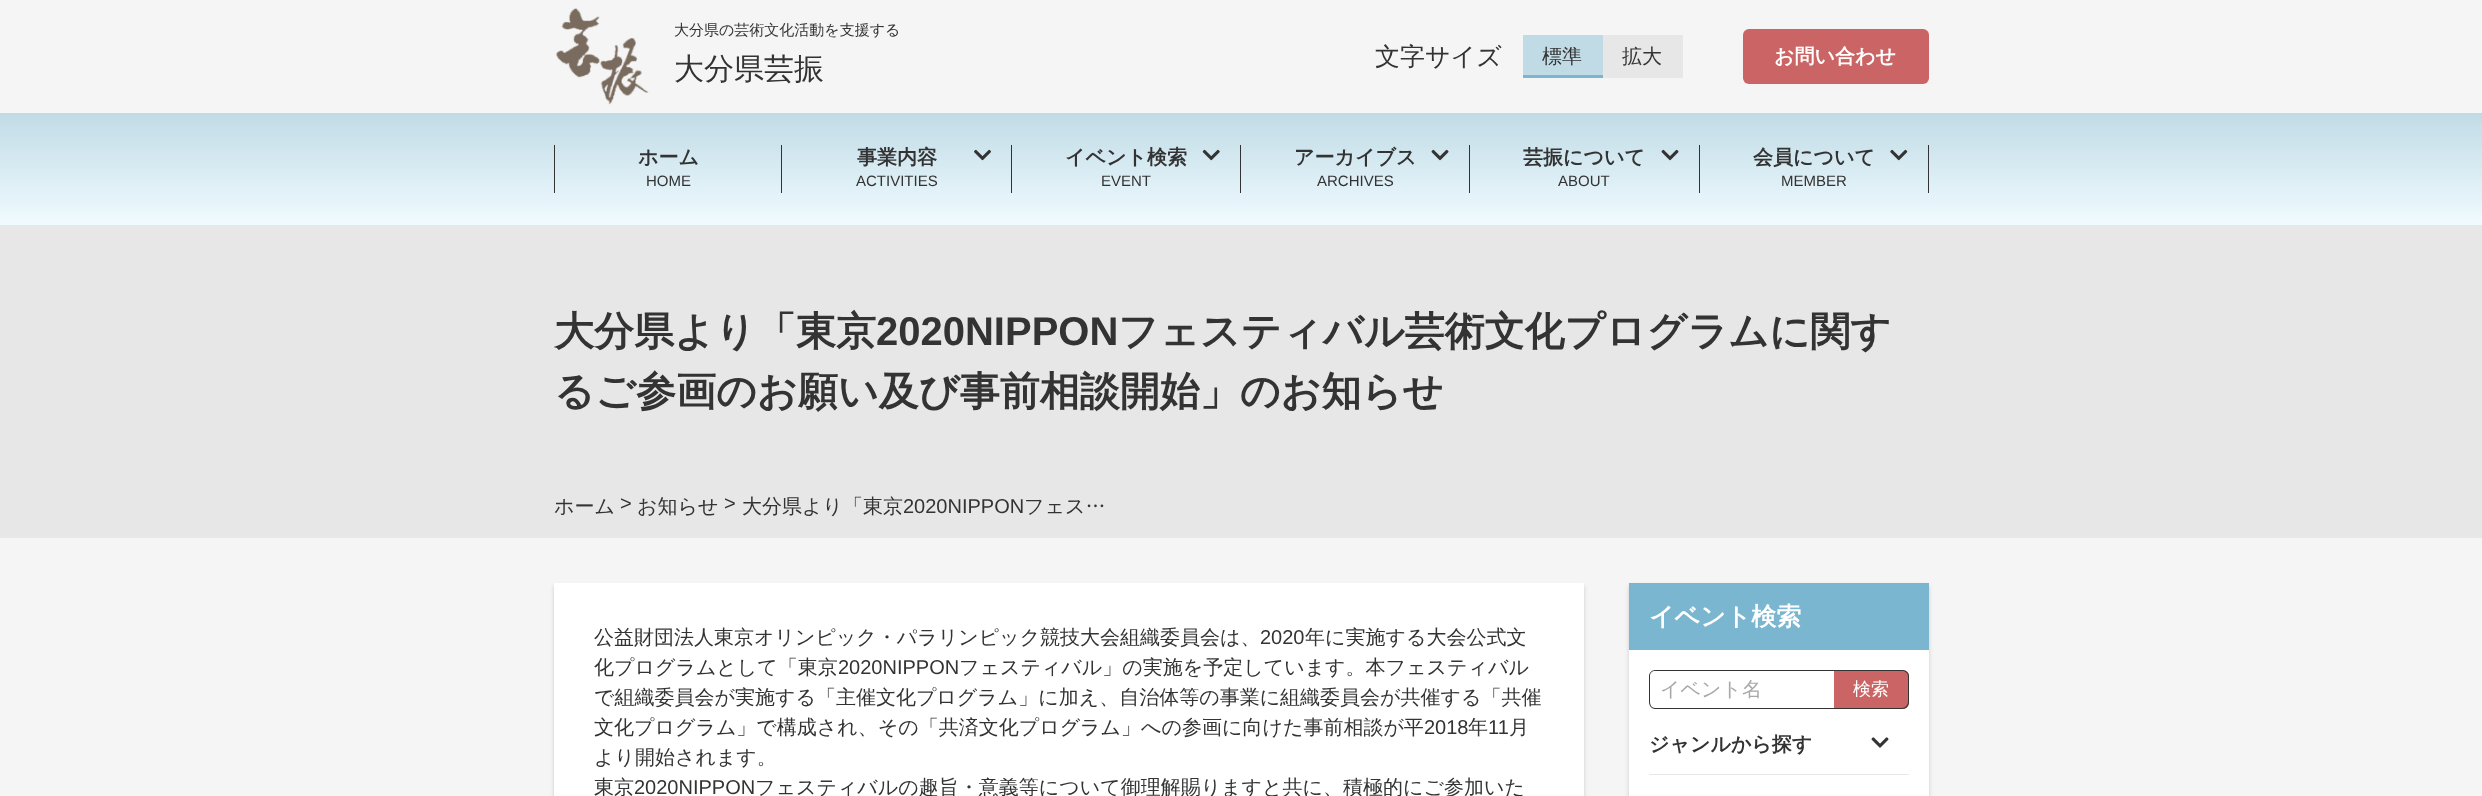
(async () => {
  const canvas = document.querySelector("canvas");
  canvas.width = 2482;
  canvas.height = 796;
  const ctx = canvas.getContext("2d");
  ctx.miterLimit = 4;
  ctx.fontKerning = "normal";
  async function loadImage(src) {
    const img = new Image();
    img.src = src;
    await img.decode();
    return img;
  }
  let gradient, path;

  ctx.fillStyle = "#f5f5f5";
  ctx.fillRect(0, 0, 2482, 796);
  ctx.drawImage(await loadImage("img/1.png"), 556, 8, 93, 97);
  for (const [x, y, w, h, color] of [
    [1523, 35, 80, 40, "#c0dbe6"],
    [1523, 75, 80, 3, "#7ab6cf"],
    [1603, 35, 80, 43, "#e7e7e7"],
  ]) {
    ctx.fillStyle = color;
    ctx.fillRect(x, y, w, h);
  }
  ctx.fillStyle = "#cb6565";
  ctx.beginPath();
  ctx.roundRect(1743, 29, 186, 55, 6);
  ctx.fill();
  gradient = ctx.createLinearGradient(1241, 112, 1241, 225);
  gradient.addColorStop(0, "#c0dbe6");
  gradient.addColorStop(1, "#f0fbff");
  ctx.fillStyle = gradient;
  ctx.fillRect(0, 113, 2482, 112);
  for (const [x, y, w, h, color] of [
    [781, 145, 1, 48, "#333333"],
    [554, 145, 1, 48, "#333333"],
    [1011, 145, 1, 48, "#333333"],
  ]) {
    ctx.fillStyle = color;
    ctx.fillRect(x, y, w, h);
  }
  ctx.drawImage(await loadImage("img/2.png"), 974, 149, 17, 12);
  ctx.fillRect(1240, 145, 1, 48);
  ctx.drawImage(await loadImage("img/3.png"), 1202, 149, 18, 12);
  ctx.fillRect(1469, 145, 1, 48);
  ctx.drawImage(await loadImage("img/4.png"), 1431, 149, 18, 12);
  ctx.fillRect(1699, 145, 1, 48);
  ctx.drawImage(await loadImage("img/4.png"), 1661, 149, 18, 12);
  ctx.fillRect(1928, 145, 1, 48);
  ctx.drawImage(await loadImage("img/5.png"), 1890, 149, 18, 12);
  ctx.fillStyle = "#e7e7e7";
  ctx.fillRect(0, 225, 2482, 313);
  ctx.fillStyle = "rgba(0, 0, 0, 0.16)";
  ctx.filter = "blur(2px)";
  ctx.beginPath();
  ctx.rect(554, 586, 1030, 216);
  ctx.fill();
  ctx.filter = "none";
  ctx.fillStyle = "#ffffff";
  ctx.fillRect(554, 583, 1030, 213);
  ctx.fillStyle = "rgba(0, 0, 0, 0.16)";
  ctx.filter = "blur(2px)";
  ctx.beginPath();
  ctx.rect(1629, 586, 300, 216);
  ctx.fill();
  ctx.filter = "none";
  ctx.fillStyle = "#ffffff";
  ctx.fillRect(1629, 650, 300, 146);
  ctx.fillStyle = "#7ab6cf";
  ctx.fillRect(1629, 583, 300, 67);
  ctx.fillStyle = "#333333";
  path = new Path2D("M1655 670H1834V709H1655C1652 709 1649 706 1649 702V676C1649 673 1652 670 1655 670ZM1655 671H1834V708H1655C1652 708 1650 705 1650 702V676C1650 673 1652 671 1655 671Z");
  ctx.fill(path, "evenodd");
  ctx.fillStyle = "#cb6565";
  ctx.beginPath();
  ctx.roundRect(1834, 670, 75, 39, [0, 6, 6, 0]);
  ctx.fill();
  ctx.fillStyle = "#333333";
  path = new Path2D("M1834 670H1902C1906 670 1909 673 1909 676V702C1909 706 1906 709 1902 709H1834ZM1834 671H1902C1905 671 1908 673 1908 676V702C1908 705 1905 708 1902 708H1834Z");
  ctx.fill(path, "evenodd");
  ctx.fillStyle = "#e7e7e7";
  ctx.fillRect(1649, 774, 260, 1);
  ctx.drawImage(await loadImage("img/6.png"), 1871, 737, 18, 11);
  ctx.font = "500 15px WenQuanYi Zen Hei";
  ctx.fillStyle = "#333333";
  ctx.fillText("大分県の芸術文化活動を支援する", 674, 35);
  ctx.font = "500 30px WenQuanYi Zen Hei";
  ctx.fillText("大分県芸振", 674, 79);
  ctx.font = "500 25px WenQuanYi Zen Hei";
  ctx.fillText("文字サイズ", 1375, 65);
  ctx.font = "500 20px WenQuanYi Zen Hei";
  ctx.fillText("標準", 1542, 63);
  ctx.fillText("拡大", 1622, 63);
  ctx.font = "bold 20px WenQuanYi Zen Hei";
  ctx.fillStyle = "#ffffff";
  ctx.fillText("お問い合わせ", 1774, 63);
  ctx.fillStyle = "#333333";
  ctx.fillText("ホーム", 638, 164);
  ctx.font = "15px Liberation Sans";
  ctx.fillText("HOME", 646, 186);
  ctx.font = "bold 20px WenQuanYi Zen Hei";
  ctx.fillText("事業内容", 857, 164);
  ctx.font = "15px Liberation Sans";
  ctx.fillText("ACTIVITIES", 856, 186);
  ctx.font = "bold 20px WenQuanYi Zen Hei";
  ctx.fillText("イベント検索", 1065, 164);
  ctx.font = "15px Liberation Sans";
  ctx.fillText("EVENT", 1101, 186);
  ctx.font = "bold 20px WenQuanYi Zen Hei";
  ctx.fillText("アーカイブス", 1294, 164);
  ctx.font = "15px Liberation Sans";
  ctx.fillText("ARCHIVES", 1317, 186);
  ctx.font = "bold 20px WenQuanYi Zen Hei";
  ctx.fillText("芸振について", 1523, 164);
  ctx.font = "15px Liberation Sans";
  ctx.fillText("ABOUT", 1558, 186);
  ctx.font = "bold 20px WenQuanYi Zen Hei";
  ctx.fillText("会員について", 1753, 164);
  ctx.font = "15px Liberation Sans";
  ctx.fillText("MEMBER", 1781, 186);
  ctx.font = "bold 40px WenQuanYi Zen Hei";
  ctx.fillText("大分県より「東京", 554, 345);
  ctx.font = "bold 40px Liberation Sans";
  ctx.fillText("2020NIPPON", 876, 345);
  ctx.font = "bold 40px WenQuanYi Zen Hei";
  ctx.fillText("フェスティバル芸術文化プログラムに関す", 1118, 345);
  ctx.fillText("るご参画のお願い及び事前相談開始」のお知らせ", 554, 405);
  ctx.font = "500 20px WenQuanYi Zen Hei";
  ctx.fillText("ホーム", 554, 513);
  ctx.font = "20px Liberation Sans";
  ctx.fillText(">", 620, 510);
  ctx.font = "500 20px WenQuanYi Zen Hei";
  ctx.fillText("お知らせ", 637, 513);
  ctx.font = "20px Liberation Sans";
  ctx.fillText(">", 724, 510);
  ctx.font = "500 20px WenQuanYi Zen Hei";
  ctx.fillText("大分県より「東京", 742, 513);
  ctx.font = "20px Liberation Sans";
  ctx.fillText("2020NIPPON", 903, 513);
  ctx.font = "500 20px WenQuanYi Zen Hei";
  ctx.fillText("フェス…", 1024, 513);
  ctx.fillText("公益財団法人東京オリンピック・パラリンピック競技大会組織委員会は、", 594, 644);
  ctx.font = "20px Liberation Sans";
  ctx.fillText("2020", 1260, 644);
  ctx.font = "500 20px WenQuanYi Zen Hei";
  ctx.fillText("年に実施する大会公式文", 1305, 644);
  ctx.fillText("化プログラムとして「東京", 594, 674);
  ctx.font = "20px Liberation Sans";
  ctx.fillText("2020NIPPON", 838, 674);
  ctx.font = "500 20px WenQuanYi Zen Hei";
  for (const [text, x, y] of [
    ["フェスティバル」の実施を予定しています。本フェスティバル", 959, 674],
    ["で組織委員会が実施する「主催文化プログラム」に加え、自治体等の事業に組織委員会が共催する「共催", 594, 704],
    ["文化プログラム」で構成され、その「共済文化プログラム」への参画に向けた事前相談が平", 594, 734],
  ]) {
    ctx.fillText(text, x, y);
  }
  ctx.font = "20px Liberation Sans";
  ctx.fillText("2018", 1424, 734);
  ctx.font = "500 20px WenQuanYi Zen Hei";
  ctx.fillText("年", 1468, 734);
  ctx.font = "20px Liberation Sans";
  ctx.fillText("11", 1488, 734);
  ctx.font = "500 20px WenQuanYi Zen Hei";
  for (const [text, x, y] of [
    ["月", 1509, 734],
    ["より開始されます。", 594, 764],
    ["東京", 594, 794],
  ]) {
    ctx.fillText(text, x, y);
  }
  ctx.font = "20px Liberation Sans";
  ctx.fillText("2020NIPPON", 634, 794);
  ctx.font = "500 20px WenQuanYi Zen Hei";
  ctx.fillText("フェスティバルの趣旨・意義等について御理解賜りますと共に、積極的にご参加いた", 755, 794);
  ctx.font = "bold 25px WenQuanYi Zen Hei";
  ctx.fillStyle = "#ffffff";
  ctx.fillText("イベント検索", 1649, 625);
  ctx.font = "500 20px WenQuanYi Zen Hei";
  ctx.fillStyle = "#a8a8a8";
  ctx.fillText("イベント名", 1660, 696);
  ctx.font = "500 18px WenQuanYi Zen Hei";
  ctx.fillStyle = "#ffffff";
  ctx.fillText("検索", 1853, 695);
  ctx.font = "bold 20px WenQuanYi Zen Hei";
  ctx.fillStyle = "#333333";
  ctx.fillText("ジャンルから探す", 1649, 751);
})();
